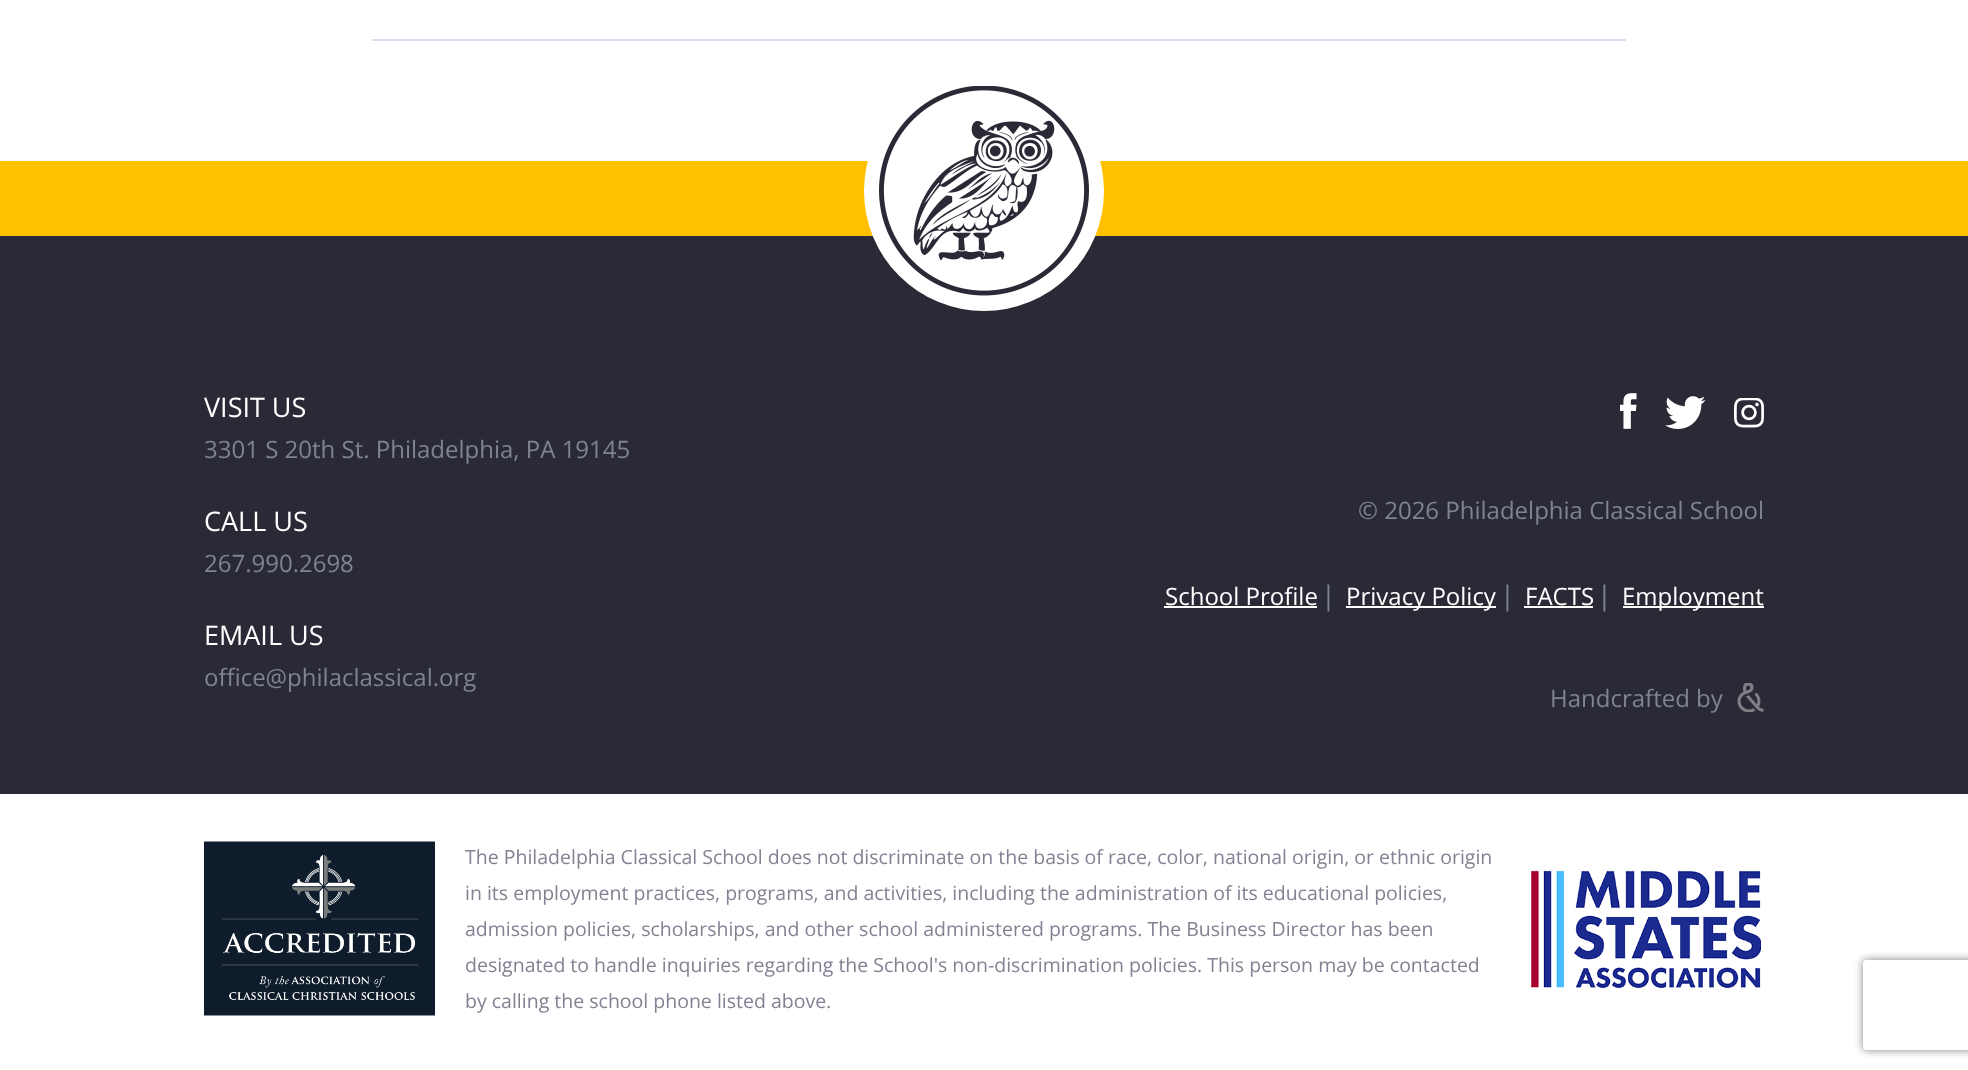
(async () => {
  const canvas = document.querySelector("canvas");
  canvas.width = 1968;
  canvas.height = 1070;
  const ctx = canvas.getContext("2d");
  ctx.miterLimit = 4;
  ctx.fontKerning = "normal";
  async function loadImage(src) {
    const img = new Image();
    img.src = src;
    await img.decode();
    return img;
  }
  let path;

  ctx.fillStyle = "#ffffff";
  ctx.fillRect(0, 0, 1968, 1070);
  for (const [x, y, w, h, color] of [
    [372, 39, 1254, 2, "#dcddee"],
    [0, 161, 1968, 75, "#ffc000"],
    [0, 236, 1968, 558, "#2a2a36"],
  ]) {
    ctx.fillStyle = color;
    ctx.fillRect(x, y, w, h);
  }
  ctx.fillStyle = "#ffffff";
  ctx.beginPath();
  ctx.arc(984, 191, 120, 0, Math.PI * 2);
  ctx.fill();
  ctx.drawImage(await loadImage("img/1.png"), 879, 86, 210, 210);
  ctx.drawImage(await loadImage("img/2.png"), 1620, 393, 17, 36);
  ctx.drawImage(await loadImage("img/3.png"), 1665, 396, 41, 33);
  ctx.drawImage(await loadImage("img/4.png"), 1734, 398, 30, 30);
  for (const [x, y, w, h, color] of [
    [1164, 606, 153, 2, "#ffffff"],
    [1346, 606, 150, 2, "#ffffff"],
    [1524, 606, 69, 2, "#ffffff"],
    [1623, 606, 141, 2, "#ffffff"],
  ]) {
    ctx.fillStyle = color;
    ctx.fillRect(x, y, w, h);
  }
  ctx.drawImage(await loadImage("img/5.png"), 1737, 683, 27, 29);
  ctx.drawImage(await loadImage("img/6.png"), 204, 841, 231, 175);
  ctx.drawImage(await loadImage("img/7.png"), 1530, 870, 231, 119);
  ctx.save();
  path = new Path2D("M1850 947H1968V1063H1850ZM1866 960H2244C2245.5 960 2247 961.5 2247 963V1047C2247 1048.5 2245.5 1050 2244 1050H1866C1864.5 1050 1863 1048.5 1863 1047V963C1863 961.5 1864.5 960 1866 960Z");
  ctx.clip(path, "evenodd");
  ctx.fillStyle = "#808080";
  ctx.filter = "blur(4px)";
  ctx.beginPath();
  ctx.roundRect(1863, 960, 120, 90, 3);
  ctx.fill();
  ctx.filter = "none";
  ctx.restore();
  ctx.font = "27px Open Sans";
  ctx.fillText("VISIT US", 204, 417);
  ctx.font = "24px Open Sans";
  ctx.fillStyle = "#818292";
  ctx.fillText("3301 S 20th St. Philadelphia, PA 19145", 204, 458);
  ctx.font = "27px Open Sans";
  ctx.fillStyle = "#ffffff";
  ctx.fillText("CALL US", 204, 531);
  ctx.font = "24px Open Sans";
  ctx.fillStyle = "#818292";
  ctx.fillText("267.990.2698", 204, 572);
  ctx.font = "27px Open Sans";
  ctx.fillStyle = "#ffffff";
  ctx.fillText("EMAIL US", 204, 645);
  ctx.font = "24px Open Sans";
  ctx.fillStyle = "#818292";
  ctx.fillText("office@philaclassical.org", 204, 686);
  ctx.fillText("© 2026 Philadelphia Classical School", 1358, 519);
  ctx.fillStyle = "#ffffff";
  ctx.fillText("School Profile", 1165, 605);
  ctx.font = "27px Open Sans";
  ctx.fillStyle = "#818292";
  ctx.fillText("|", 1321, 605);
  ctx.font = "24px Open Sans";
  ctx.fillStyle = "#ffffff";
  ctx.fillText("Privacy Policy", 1346, 605);
  ctx.font = "27px Open Sans";
  ctx.fillStyle = "#818292";
  ctx.fillText("|", 1500, 605);
  ctx.font = "24px Open Sans";
  ctx.fillStyle = "#ffffff";
  ctx.fillText("FACTS", 1525, 605);
  ctx.font = "27px Open Sans";
  ctx.fillStyle = "#818292";
  ctx.fillText("|", 1597, 605);
  ctx.font = "24px Open Sans";
  ctx.fillStyle = "#ffffff";
  ctx.fillText("Employment", 1622, 605);
  ctx.fillStyle = "#818292";
  ctx.fillText("Handcrafted by", 1550, 707);
  ctx.font = "19.5px Open Sans";
  for (const [text, x, y] of [
    ["The Philadelphia Classical School does not discriminate on the basis of race, color, national origin, or ethnic origin", 465, 864],
    ["in its employment practices, programs, and activities, including the administration of its educational policies,", 465, 900],
    ["admission policies, scholarships, and other school administered programs. The Business Director has been", 465, 936],
    ["designated to handle inquiries regarding the School's non-discrimination policies. This person may be contacted", 465, 972],
    ["by calling the school phone listed above.", 465, 1008],
  ]) {
    ctx.fillText(text, x, y);
  }
})();
